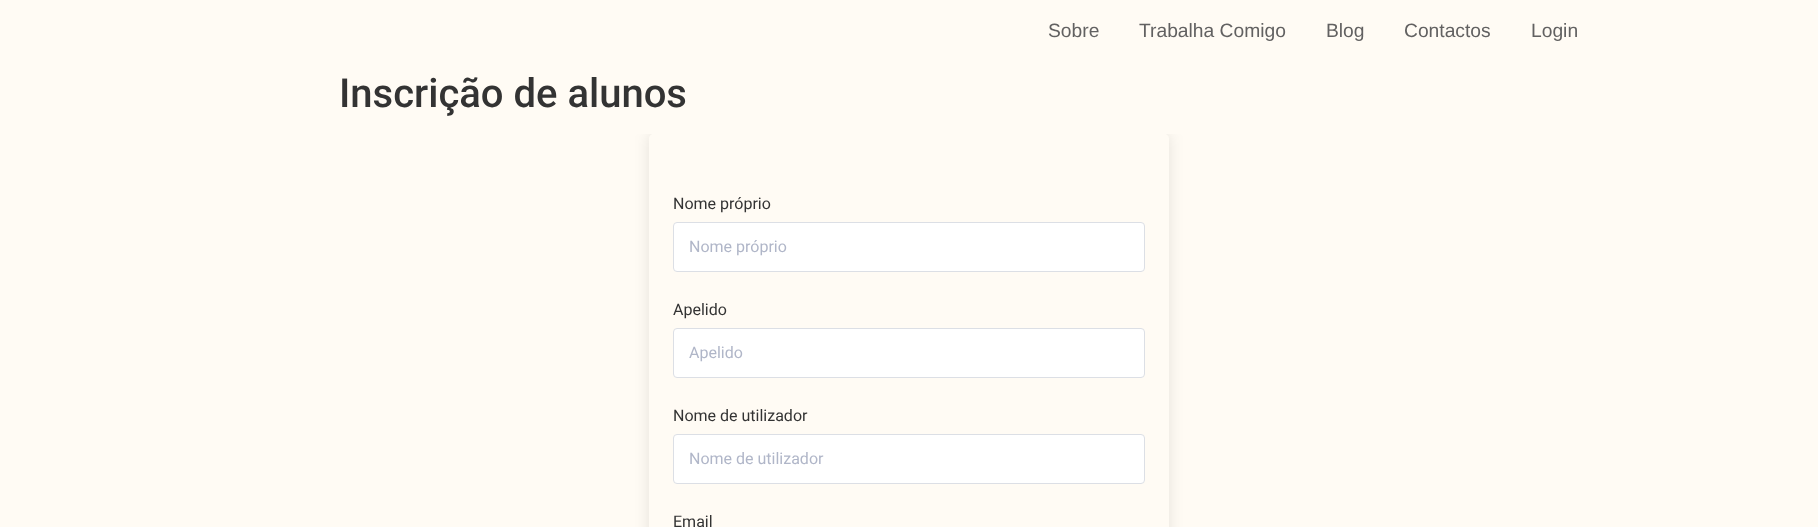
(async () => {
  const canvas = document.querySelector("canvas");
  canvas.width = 1818;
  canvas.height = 527;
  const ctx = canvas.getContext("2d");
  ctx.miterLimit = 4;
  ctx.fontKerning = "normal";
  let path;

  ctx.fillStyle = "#fffbf4";
  ctx.fillRect(0, 0, 1818, 527);
  ctx.save();
  ctx.beginPath();
  ctx.rect(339, 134, 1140, 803);
  ctx.clip();
  path = new Path2D("M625 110H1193V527H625ZM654 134H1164C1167 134 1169 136 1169 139V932C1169 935 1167 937 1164 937H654C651 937 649 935 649 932V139C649 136 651 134 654 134Z");
  ctx.clip(path, "evenodd");
  ctx.fillStyle = "rgba(0, 0, 0, 0.1)";
  ctx.filter = "blur(7.5px)";
  ctx.beginPath();
  ctx.roundRect(649, 134, 520, 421, 5);
  ctx.fill();
  ctx.filter = "none";
  ctx.restore();
  ctx.fillStyle = "#ffffff";
  ctx.beginPath();
  ctx.roundRect(673.5, 222.5, 471, 49, 3.5);
  ctx.fill();
  ctx.strokeStyle = "#dcdfe5";
  ctx.stroke();
  ctx.beginPath();
  ctx.roundRect(673.5, 328.5, 471, 49, 3.5);
  ctx.fill();
  ctx.stroke();
  ctx.beginPath();
  ctx.roundRect(673.5, 434.5, 471, 49, 3.5);
  ctx.fill();
  ctx.stroke();
  ctx.font = "19.25px Liberation Sans";
  ctx.fillStyle = "#626161";
  for (const [text, x, y] of [
    ["Sobre", 1048, 37],
    ["Trabalha Comigo", 1139, 37],
    ["Blog", 1326, 37],
    ["Contactos", 1404, 37],
    ["Login", 1531, 37],
  ]) {
    ctx.fillText(text, x, y);
  }
  ctx.font = "500 40px Roboto";
  ctx.fillStyle = "#333333";
  ctx.fillText("Inscrição de alunos", 339, 107);
  ctx.font = "16px Roboto";
  ctx.fillText("Nome próprio", 673, 209);
  ctx.fillStyle = "#b0b6c8";
  ctx.fillText("Nome próprio", 689, 252);
  ctx.fillStyle = "#333333";
  ctx.fillText("Apelido", 673, 315);
  ctx.fillStyle = "#b0b6c8";
  ctx.fillText("Apelido", 689, 358);
  ctx.fillStyle = "#333333";
  ctx.fillText("Nome de utilizador", 673, 421);
  ctx.fillStyle = "#b0b6c8";
  ctx.fillText("Nome de utilizador", 689, 464);
  ctx.fillStyle = "#333333";
  ctx.fillText("Email", 673, 527);
})();
